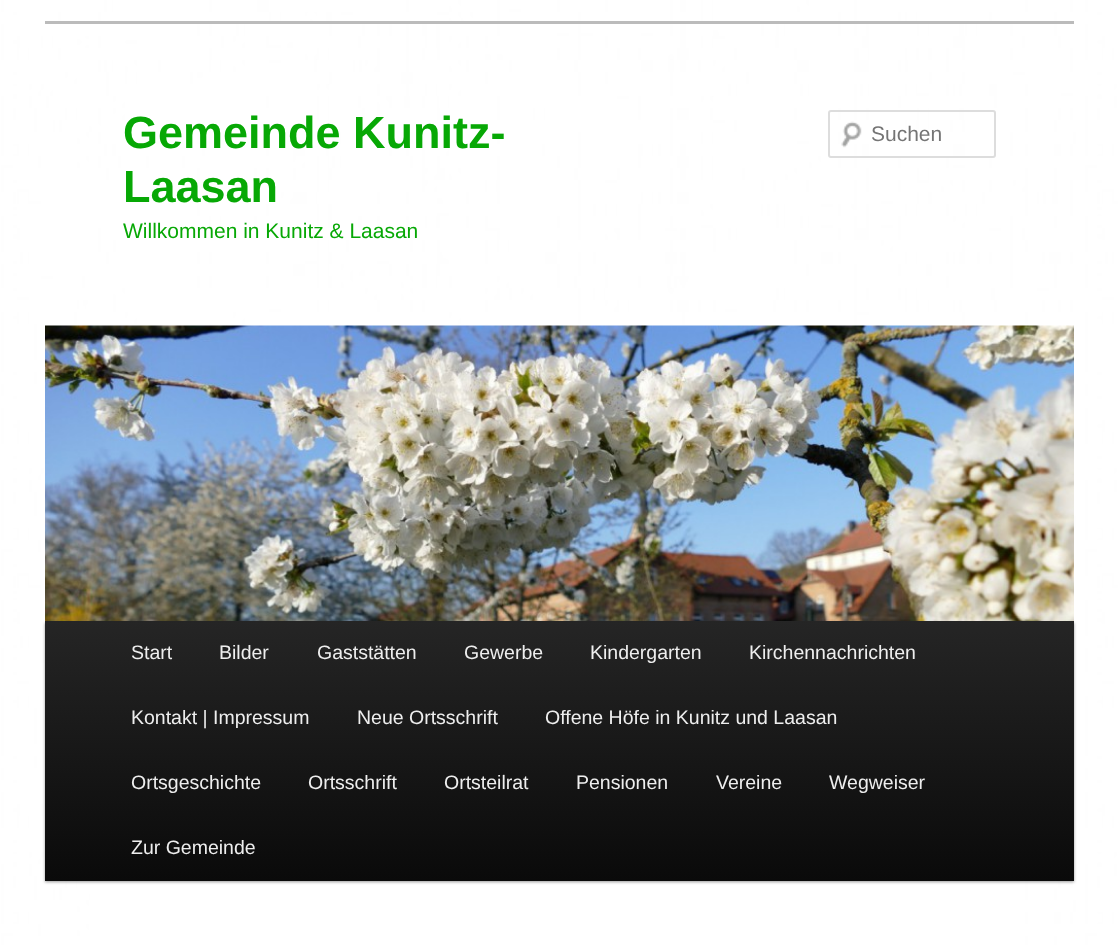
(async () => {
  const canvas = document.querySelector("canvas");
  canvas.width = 1118;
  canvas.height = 945;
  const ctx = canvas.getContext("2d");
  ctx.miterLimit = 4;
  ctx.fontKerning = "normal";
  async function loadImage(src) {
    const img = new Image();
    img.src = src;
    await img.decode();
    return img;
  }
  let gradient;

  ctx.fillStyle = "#ffffff";
  ctx.fillRect(0, 0, 1118, 945);
  ctx.drawImage(await loadImage("img/1.png"), 0, 0, 1118, 945);
  ctx.fillRect(90, 335, 935, 610);
  ctx.fillStyle = "#bbbbbb";
  ctx.fillRect(45, 21, 1029, 3);
  ctx.drawImage(await loadImage("img/2.png"), 841, 121, 21, 27);
  ctx.beginPath();
  ctx.roundRect(829, 111, 166, 46, 2);
  ctx.strokeStyle = "#dddddd";
  ctx.lineWidth = 2;
  ctx.stroke();
  ctx.fillStyle = "rgba(0, 0, 0, 0.4)";
  ctx.filter = "blur(1.5px)";
  ctx.beginPath();
  ctx.rect(45, 623, 1029, 259);
  ctx.fill();
  ctx.filter = "none";
  ctx.drawImage(await loadImage("img/3.png"), 45, 325, 1029, 296);
  gradient = ctx.createLinearGradient(560, 621, 560, 881);
  gradient.addColorStop(0, "#252525");
  gradient.addColorStop(1, "#0a0a0a");
  ctx.fillStyle = gradient;
  ctx.fillRect(45, 621, 1029, 260);
  ctx.font = "bold 45px Liberation Sans";
  ctx.fillStyle = "#07a805";
  ctx.fillText("Gemeinde Kunitz-", 123, 148);
  ctx.fillText("Laasan", 123, 202);
  ctx.font = "21px Liberation Sans";
  ctx.fillText("Willkommen in Kunitz & Laasan", 123, 238);
  ctx.fillStyle = "#757575";
  ctx.fillText("Suchen", 871, 141);
  ctx.font = "19.5px Liberation Sans";
  ctx.fillStyle = "#eeeeee";
  for (const [text, x, y] of [
    ["Start", 131, 659],
    ["Bilder", 219, 659],
    ["Gaststätten", 317, 659],
    ["Gewerbe", 464, 659],
    ["Kindergarten", 590, 659],
    ["Kirchennachrichten", 749, 659],
    ["Kontakt | Impressum", 131, 724],
    ["Neue Ortsschrift", 357, 724],
    ["Offene Höfe in Kunitz und Laasan", 545, 724],
    ["Ortsgeschichte", 131, 789],
    ["Ortsschrift", 308, 789],
    ["Ortsteilrat", 444, 789],
    ["Pensionen", 576, 789],
    ["Vereine", 716, 789],
    ["Wegweiser", 829, 789],
    ["Zur Gemeinde", 131, 854],
  ]) {
    ctx.fillText(text, x, y);
  }
})();
